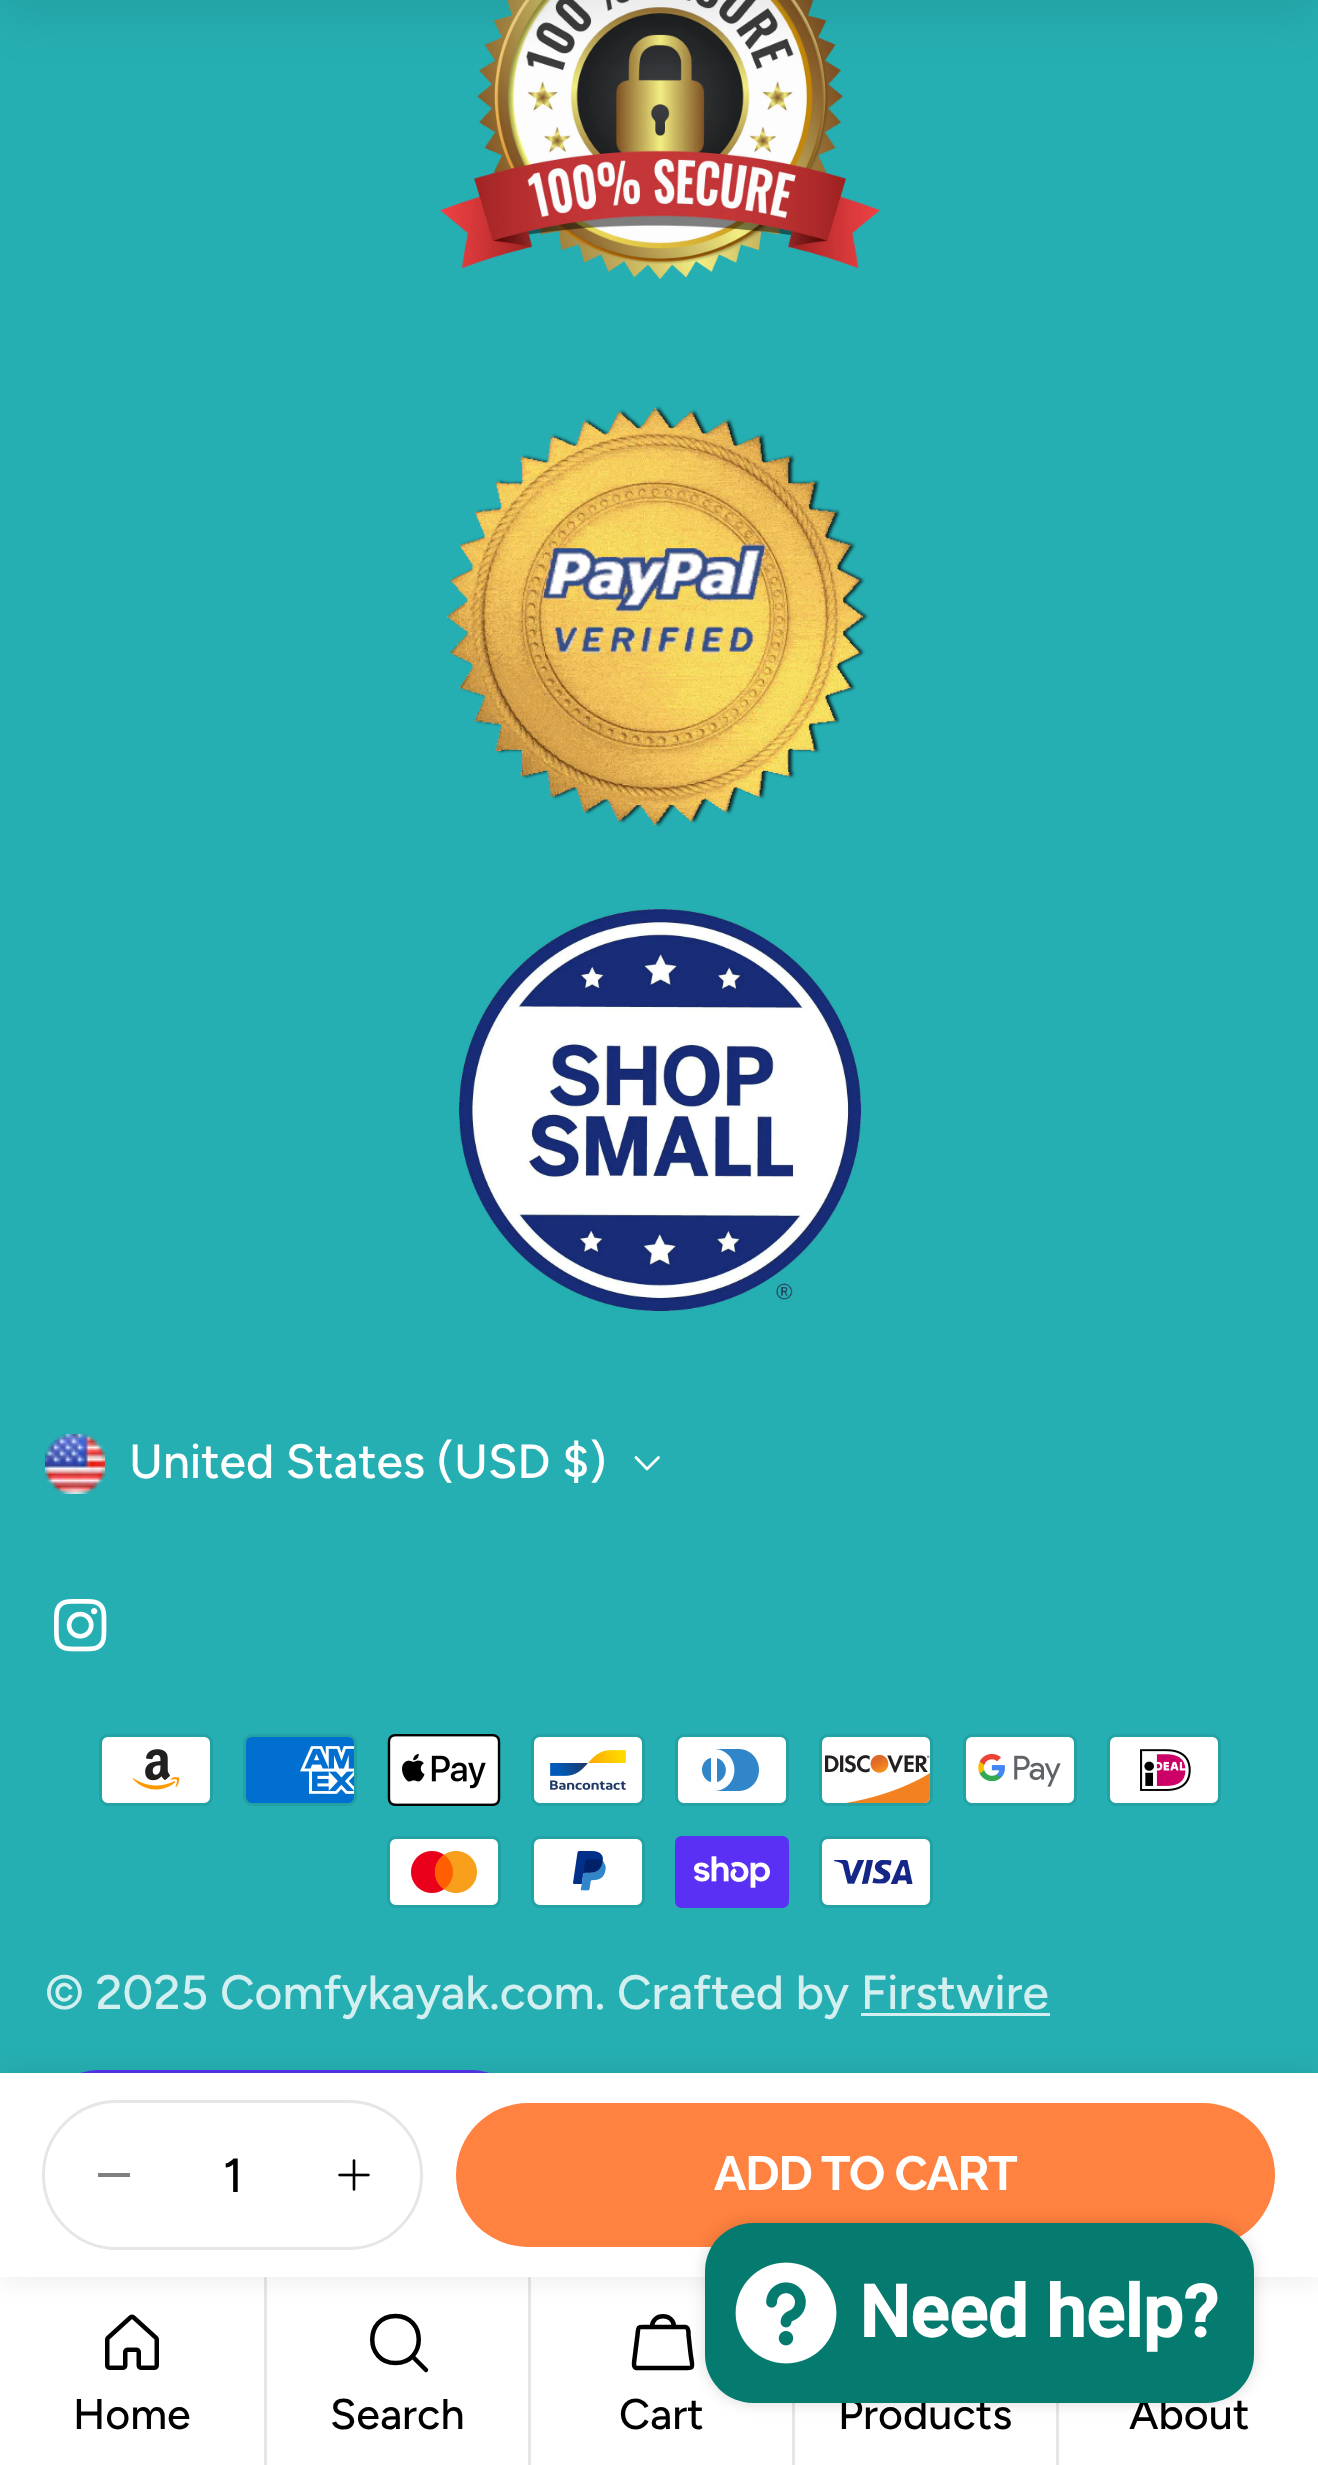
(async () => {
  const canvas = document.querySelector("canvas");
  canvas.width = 1318;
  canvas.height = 2465;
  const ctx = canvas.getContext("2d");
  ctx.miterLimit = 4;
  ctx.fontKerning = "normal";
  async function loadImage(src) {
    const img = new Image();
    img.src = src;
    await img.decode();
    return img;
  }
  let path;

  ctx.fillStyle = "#ffffff";
  ctx.fillRect(0, 0, 1318, 2465);
  ctx.fillStyle = "#26afb2";
  ctx.fillRect(0, 0, 1318, 2073);
  ctx.drawImage(await loadImage("img/1.png"), 440, 0, 440, 279);
  ctx.fillStyle = "rgba(0, 0, 0, 0.1)";
  ctx.filter = "blur(27px)";
  ctx.beginPath();
  ctx.rect(0, -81, 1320, 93);
  ctx.fill();
  ctx.filter = "none";
  ctx.drawImage(await loadImage("img/2.png"), 447, 406, 422, 421);
  ctx.drawImage(await loadImage("img/3.png"), 459, 909, 402, 402);
  ctx.drawImage(await loadImage("img/4.png"), 45, 1434, 60, 60);
  path = new Path2D("M658.5 1457.5L647 1469L636 1457.5");
  ctx.strokeStyle = "#ffffff";
  ctx.lineWidth = 2.7;
  ctx.lineCap = "round";
  ctx.lineJoin = "round";
  ctx.stroke(path);
  ctx.drawImage(await loadImage("img/5.png"), 54, 1599, 53, 53);
  ctx.drawImage(await loadImage("img/6.png"), 99, 1734, 114, 72);
  ctx.drawImage(await loadImage("img/7.png"), 243, 1734, 114, 72);
  ctx.drawImage(await loadImage("img/8.png"), 387, 1734, 114, 72);
  ctx.drawImage(await loadImage("img/9.png"), 531, 1734, 114, 72);
  ctx.drawImage(await loadImage("img/10.png"), 675, 1734, 114, 72);
  ctx.drawImage(await loadImage("img/11.png"), 819, 1734, 114, 72);
  ctx.drawImage(await loadImage("img/12.png"), 963, 1734, 114, 72);
  ctx.drawImage(await loadImage("img/13.png"), 1107, 1734, 114, 72);
  ctx.drawImage(await loadImage("img/14.png"), 387, 1836, 114, 72);
  ctx.drawImage(await loadImage("img/15.png"), 531, 1836, 114, 72);
  ctx.drawImage(await loadImage("img/16.png"), 675, 1836, 114, 72);
  ctx.drawImage(await loadImage("img/17.png"), 819, 1836, 114, 72);
  ctx.fillStyle = "#d4eff0";
  ctx.fillRect(861, 2013, 189, 3);
  ctx.fillStyle = "#5433eb";
  ctx.beginPath();
  ctx.roundRect(45, 2070, 480, 108, 54);
  ctx.fill();
  ctx.drawImage(await loadImage("img/18.png"), 105, 2314, 54, 56);
  ctx.fillStyle = "#e6e6e6";
  ctx.fillRect(264, 2277, 3, 188);
  path = new Path2D("M395.5 2363C426.5 2363 426.5 2316 395.5 2316C364.5 2316 364.5 2363 395.5 2363ZM412.5 2356.5L426 2370");
  ctx.strokeStyle = "#000000";
  ctx.lineWidth = 4.5;
  ctx.stroke(path);
  ctx.fillRect(528, 2277, 3, 188);
  path = new Path2D("M685.5 2327H648C637.5 2327 638.5 2325.5 637.5 2335L634.5 2359C634.5 2360 632.5 2367.5 636.5 2368H681C695.5 2368 692.5 2369 690.5 2353L688.5 2335C688.5 2334 689 2327.5 685.5 2327Z");
  ctx.stroke(path);
  path = new Path2D("M652 2327C652 2312.5 674 2312.5 674 2327");
  ctx.stroke(path);
  ctx.fillRect(792, 2403, 3, 62);
  ctx.fillRect(1056, 2403, 3, 62);
  ctx.fillStyle = "rgba(0, 0, 0, 0.09)";
  ctx.filter = "blur(15px)";
  ctx.beginPath();
  ctx.rect(0, 2073, 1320, 204);
  ctx.fill();
  ctx.filter = "none";
  ctx.fillStyle = "#ffffff";
  ctx.fillRect(0, 2073, 1318, 204);
  ctx.beginPath();
  ctx.roundRect(43.5, 2101.5, 378, 147, 73.5);
  ctx.strokeStyle = "#e6e6e6";
  ctx.lineWidth = 3;
  ctx.lineJoin = "miter";
  ctx.stroke();
  ctx.fillStyle = "#808080";
  ctx.fillRect(98, 2173, 32, 4);
  ctx.drawImage(await loadImage("img/19.png"), 338, 2159, 32, 32);
  ctx.fillStyle = "#ff8240";
  ctx.beginPath();
  ctx.roundRect(456, 2103, 819, 144, 72);
  ctx.fill();
  ctx.fillStyle = "rgba(0, 0, 0, 0.15)";
  ctx.filter = "blur(7.5px)";
  ctx.beginPath();
  ctx.roundRect(705, 2223, 549, 180, 48);
  ctx.fill();
  ctx.filter = "none";
  ctx.font = "500 48px Figtree";
  ctx.fillStyle = "#ffffff";
  ctx.fillText("United States (USD $)", 129, 1478);
  ctx.fillStyle = "#d4eff0";
  ctx.fillText("© 2025 Comfykayak.com. Crafted by Firstwire", 45, 2009);
  ctx.font = "500 43px Figtree";
  ctx.fillStyle = "#000000";
  for (const [text, x, y] of [
    ["Home", 73, 2429],
    ["Search", 330, 2429],
    ["Cart", 619, 2429],
    ["Products", 838, 2429],
    ["About", 1129, 2429],
  ]) {
    ctx.fillText(text, x, y);
  }
  ctx.font = "500 48px Figtree";
  ctx.fillText("1", 223, 2192);
  ctx.letterSpacing = "-1px";
  ctx.font = "bold 48px Raleway";
  ctx.fillStyle = "#ffffff";
  ctx.fillText("ADD TO CART", 714, 2190);
  ctx.fillStyle = "#057b6f";
  ctx.beginPath();
  ctx.roundRect(705, 2223, 549, 180, 48);
  ctx.fill();
  ctx.drawImage(await loadImage("img/20.png"), 735, 2262, 102, 102);
  ctx.letterSpacing = "0px";
  ctx.font = "bold 72px Roboto";
  ctx.fillStyle = "#ffffff";
  ctx.fillText("Need help?", 859, 2337);
})();
